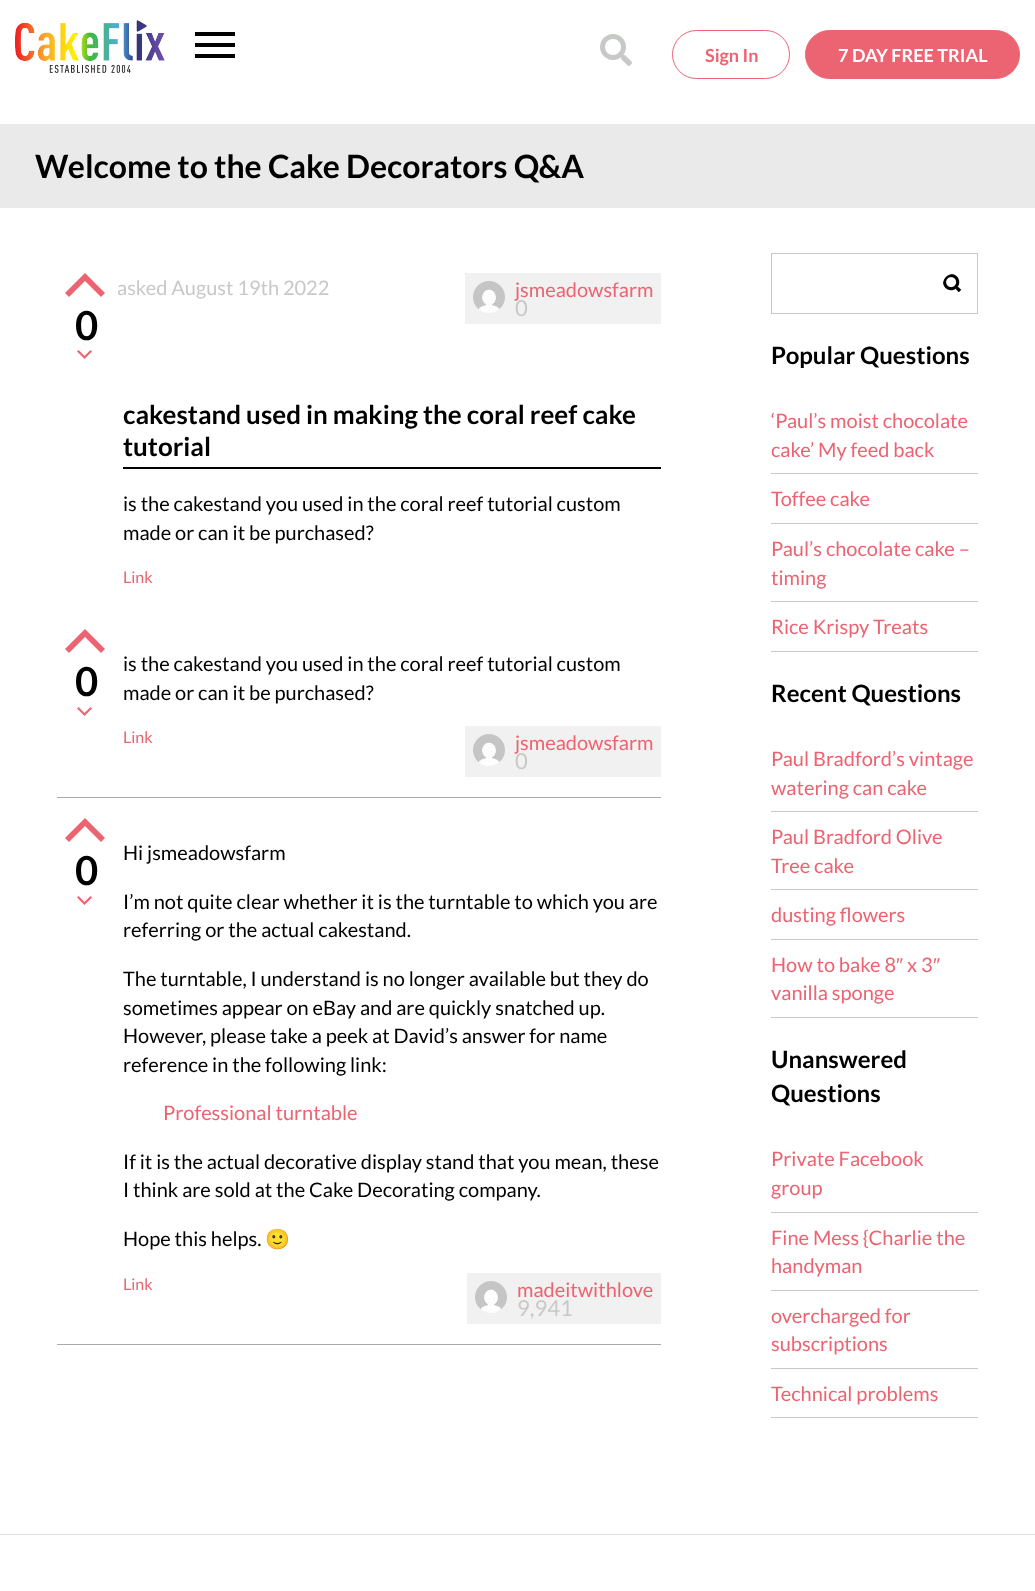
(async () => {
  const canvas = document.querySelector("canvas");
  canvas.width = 1035;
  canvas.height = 1591;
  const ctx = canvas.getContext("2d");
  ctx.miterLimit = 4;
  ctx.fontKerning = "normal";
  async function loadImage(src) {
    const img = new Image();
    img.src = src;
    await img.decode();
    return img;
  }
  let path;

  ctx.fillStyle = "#ffffff";
  ctx.fillRect(0, 0, 1035, 1591);
  ctx.drawImage(await loadImage("img/1.png"), 15, 20, 150, 53);
  for (const [x, y, w, h, color] of [
    [195, 32, 40, 4, "#000000"],
    [195, 43, 40, 4, "#000000"],
    [195, 54, 40, 4, "#000000"],
  ]) {
    ctx.fillStyle = color;
    ctx.fillRect(x, y, w, h);
  }
  ctx.drawImage(await loadImage("img/2.png"), 600, 34, 32, 32);
  ctx.beginPath();
  ctx.roundRect(672.5, 30.5, 117, 48, 24);
  ctx.strokeStyle = "#ec6471";
  ctx.stroke();
  ctx.fillStyle = "#ec6471";
  ctx.beginPath();
  ctx.roundRect(805.5, 30.5, 214, 48, 24);
  ctx.fill();
  ctx.stroke();
  ctx.fillStyle = "#eaeaea";
  ctx.fillRect(0, 124, 1035, 84);
  ctx.fillStyle = "#f1f1f1";
  ctx.fillRect(465, 273, 196, 51);
  ctx.drawImage(await loadImage("img/3.png"), 473, 281, 32, 32);
  ctx.fillStyle = "#ec6471";
  path = new Path2D("M101 297L105 293L85 273L65 293L69 297L85 281Z");
  ctx.fill(path);
  ctx.drawImage(await loadImage("img/4.png"), 77, 350, 15, 9);
  ctx.fillStyle = "#000000";
  ctx.fillRect(123, 467, 538, 2);
  ctx.fillStyle = "#aaaaaa";
  ctx.fillRect(57, 797, 604, 1);
  ctx.fillStyle = "#ec6471";
  path = new Path2D("M101 653L105 649L85 629L65 649L69 653L85 637Z");
  ctx.fill(path);
  ctx.drawImage(await loadImage("img/4.png"), 77, 707, 15, 9);
  ctx.fillStyle = "#f1f1f1";
  ctx.fillRect(465, 726, 196, 51);
  ctx.drawImage(await loadImage("img/5.png"), 473, 734, 32, 32);
  ctx.fillStyle = "#aaaaaa";
  ctx.fillRect(57, 1344, 604, 1);
  ctx.fillStyle = "#ec6471";
  path = new Path2D("M101 842L105 838L85 818L65 838L69 842L85 826Z");
  ctx.fill(path);
  ctx.drawImage(await loadImage("img/4.png"), 77, 896, 15, 9);
  ctx.fillStyle = "#f1f1f1";
  ctx.fillRect(467, 1273, 194, 51);
  ctx.drawImage(await loadImage("img/3.png"), 475, 1281, 32, 32);
  ctx.strokeStyle = "#c7c9c7";
  ctx.strokeRect(771.5, 253.5, 206, 60);
  ctx.drawImage(await loadImage("img/6.png"), 943, 274, 19, 19);
  for (const [x, y, w, h, color] of [
    [771, 473, 207, 1, "#c7c9c7"],
    [771, 523, 207, 1, "#c7c9c7"],
    [771, 601, 207, 1, "#c7c9c7"],
    [771, 651, 207, 1, "#c7c9c7"],
    [771, 811, 207, 1, "#c7c9c7"],
    [771, 889, 207, 1, "#c7c9c7"],
    [771, 939, 207, 1, "#c7c9c7"],
    [771, 1017, 207, 1, "#c7c9c7"],
    [771, 1212, 207, 1, "#c7c9c7"],
    [771, 1290, 207, 1, "#c7c9c7"],
    [771, 1368, 207, 1, "#c7c9c7"],
    [771, 1417, 207, 1, "#c7c9c7"],
    [0, 1534, 1035, 1, "#e0e1e0"],
  ]) {
    ctx.fillStyle = color;
    ctx.fillRect(x, y, w, h);
  }
  ctx.font = "bold 18px Lato";
  ctx.fillStyle = "#ec6471";
  ctx.fillText("Sign In", 705, 62);
  ctx.fillStyle = "#ffffff";
  ctx.fillText("7 DAY FREE TRIAL", 838, 62);
  ctx.font = "bold 32px Lato";
  ctx.fillStyle = "#000000";
  ctx.fillText("Welcome to the Cake Decorators Q&A", 35, 178);
  ctx.font = "20px Lato";
  ctx.fillStyle = "#c7c9c7";
  ctx.fillText("asked August 19th 2022", 117, 295);
  ctx.fillStyle = "#ec6471";
  ctx.fillText("jsmeadowsfarm", 515, 297);
  ctx.font = "22px Lato";
  ctx.fillStyle = "#c7c9c7";
  ctx.fillText("0", 515, 316);
  ctx.font = "bold 40px Lato";
  ctx.fillStyle = "#000000";
  ctx.fillText("0", 75, 340);
  ctx.font = "bold 26px Lato";
  ctx.fillText("cakestand used in making the coral reef cake", 123, 424);
  ctx.fillText("tutorial", 123, 456);
  ctx.font = "20px Lato";
  ctx.fillText("is the cakestand you used in the coral reef tutorial custom", 123, 511);
  ctx.fillText("made or can it be purchased?", 123, 540);
  ctx.font = "16px Lato";
  ctx.fillStyle = "#ec6471";
  ctx.fillText("Link", 123, 583);
  ctx.font = "bold 40px Lato";
  ctx.fillStyle = "#000000";
  ctx.fillText("0", 75, 696);
  ctx.font = "20px Lato";
  ctx.fillText("is the cakestand you used in the coral reef tutorial custom", 123, 671);
  ctx.fillText("made or can it be purchased?", 123, 700);
  ctx.font = "16px Lato";
  ctx.fillStyle = "#ec6471";
  ctx.fillText("Link", 123, 743);
  ctx.font = "20px Lato";
  ctx.fillText("jsmeadowsfarm", 515, 750);
  ctx.font = "22px Lato";
  ctx.fillStyle = "#c7c9c7";
  ctx.fillText("0", 515, 769);
  ctx.font = "bold 40px Lato";
  ctx.fillStyle = "#000000";
  ctx.fillText("0", 75, 885);
  ctx.font = "20px Lato";
  for (const [text, x, y] of [
    ["Hi jsmeadowsfarm", 123, 860],
    ["I’m not quite clear whether it is the turntable to which you are", 123, 909],
    ["referring or the actual cakestand.", 123, 937],
    ["The turntable, I understand is no longer available but they do", 123, 986],
    ["sometimes appear on eBay and are quickly snatched up.", 123, 1015],
    ["However, please take a peek at David’s answer for name", 123, 1043],
    ["reference in the following link:", 123, 1072],
  ]) {
    ctx.fillText(text, x, y);
  }
  ctx.fillStyle = "#ec6471";
  ctx.fillText("Professional turntable", 163, 1120);
  ctx.fillStyle = "#000000";
  for (const [text, x, y] of [
    ["If it is the actual decorative display stand that you mean, these", 123, 1169],
    ["I think are sold at the Cake Decorating company.", 123, 1197],
    ["Hope this helps.", 123, 1246],
  ]) {
    ctx.fillText(text, x, y);
  }
  ctx.font = "20px Noto Color Emoji";
  ctx.fillText("🙂", 265, 1246);
  ctx.font = "16px Lato";
  ctx.fillStyle = "#ec6471";
  ctx.fillText("Link", 123, 1290);
  ctx.font = "20px Lato";
  ctx.fillText("madeitwithlove", 517, 1297);
  ctx.font = "22px Lato";
  ctx.fillStyle = "#c7c9c7";
  ctx.fillText("9,941", 517, 1316);
  ctx.font = "bold 24px Lato";
  ctx.fillStyle = "#000000";
  ctx.fillText("Popular Questions", 771, 364);
  ctx.font = "20px Lato";
  ctx.fillStyle = "#ec6471";
  for (const [text, x, y] of [
    ["‘Paul’s moist chocolate", 771, 428],
    ["cake’ My feed back", 771, 457],
    ["Toffee cake", 771, 506],
    ["Paul’s chocolate cake –", 771, 556],
    ["timing", 771, 585],
    ["Rice Krispy Treats", 771, 634],
  ]) {
    ctx.fillText(text, x, y);
  }
  ctx.font = "bold 24px Lato";
  ctx.fillStyle = "#000000";
  ctx.fillText("Recent Questions", 771, 702);
  ctx.font = "20px Lato";
  ctx.fillStyle = "#ec6471";
  for (const [text, x, y] of [
    ["Paul Bradford’s vintage", 771, 766],
    ["watering can cake", 771, 795],
    ["Paul Bradford Olive", 771, 844],
    ["Tree cake", 771, 873],
    ["dusting flowers", 771, 922],
    ["How to bake 8", 771, 972],
  ]) {
    ctx.fillText(text, x, y);
  }
  ctx.font = "20px Liberation Sans";
  ctx.fillText("″", 896, 972);
  ctx.font = "20px Lato";
  ctx.fillText("x 3", 907, 972);
  ctx.font = "20px Liberation Sans";
  ctx.fillText("″", 933, 972);
  ctx.font = "20px Lato";
  ctx.fillText("vanilla sponge", 771, 1000);
  ctx.font = "bold 24px Lato";
  ctx.fillStyle = "#000000";
  ctx.fillText("Unanswered", 771, 1068);
  ctx.fillText("Questions", 771, 1102);
  ctx.font = "20px Lato";
  ctx.fillStyle = "#ec6471";
  for (const [text, x, y] of [
    ["Private Facebook", 771, 1166],
    ["group", 771, 1195],
    ["Fine Mess {Charlie the", 771, 1245],
    ["handyman", 771, 1273],
    ["overcharged for", 771, 1323],
    ["subscriptions", 771, 1351],
    ["Technical problems", 771, 1401],
  ]) {
    ctx.fillText(text, x, y);
  }
})();
